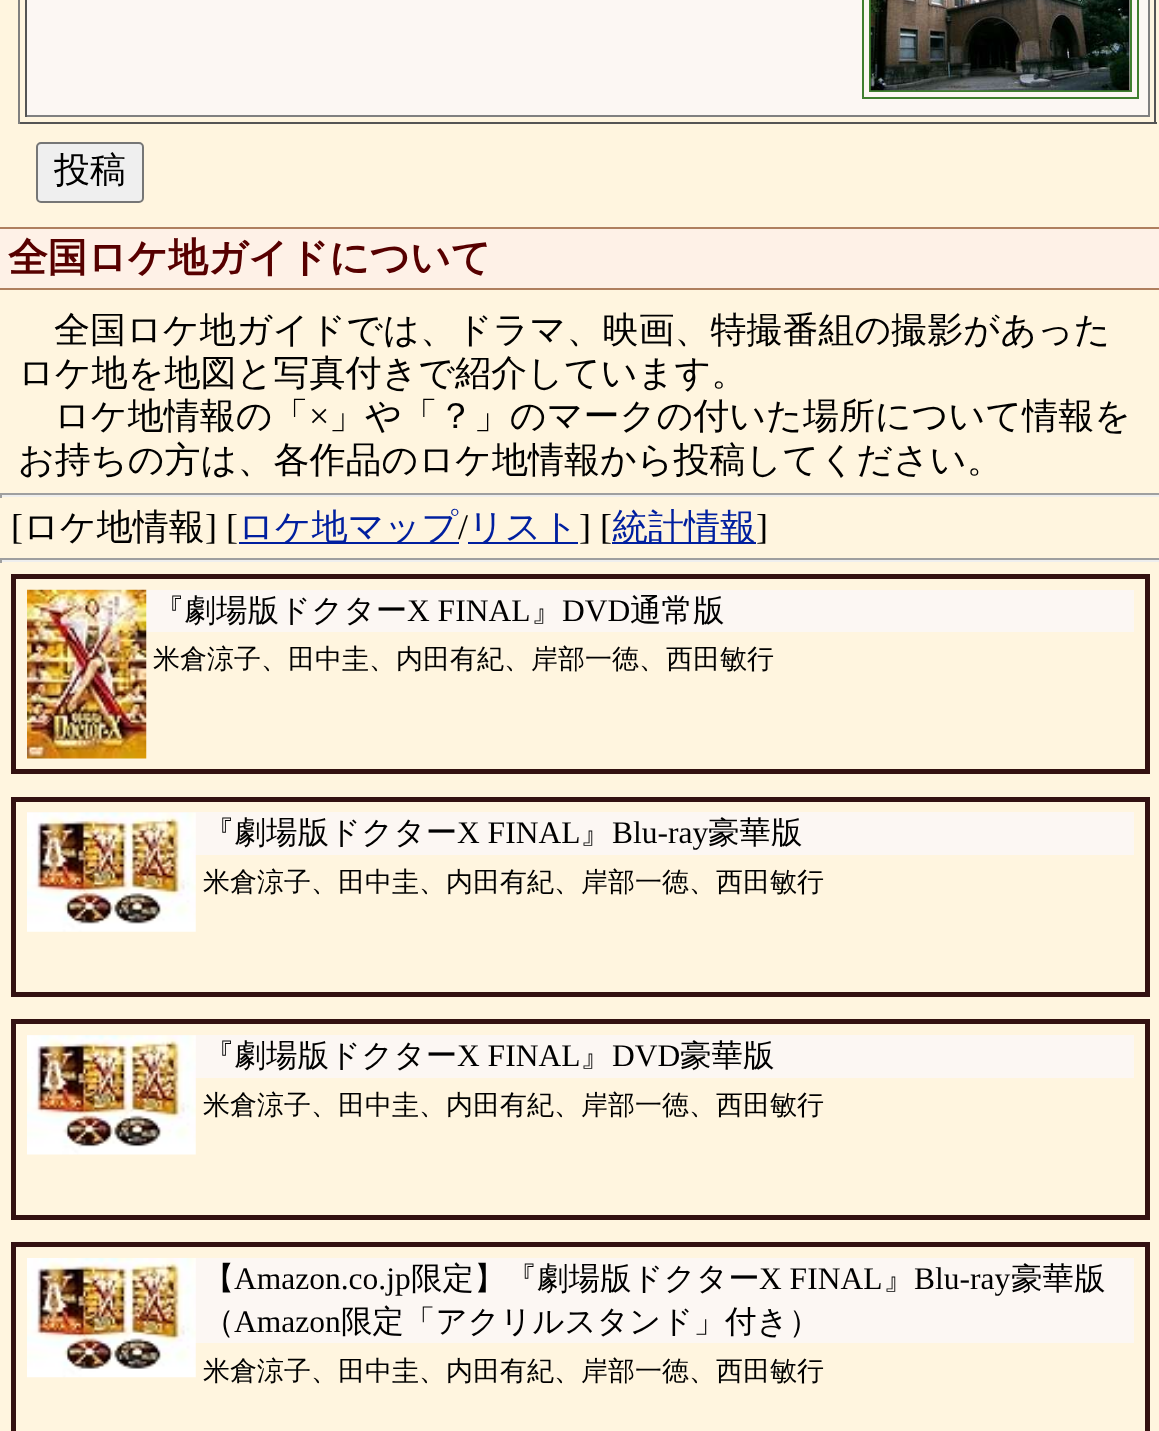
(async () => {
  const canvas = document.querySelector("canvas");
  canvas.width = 1159;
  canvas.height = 1431;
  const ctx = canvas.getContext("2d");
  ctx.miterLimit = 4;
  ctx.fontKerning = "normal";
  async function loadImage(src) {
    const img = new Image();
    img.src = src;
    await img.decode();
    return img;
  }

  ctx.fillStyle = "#fff5df";
  ctx.fillRect(0, 0, 1159, 1431);
  for (const [x, y, w, h, color] of [
    [1154, 0, 2, 124, "#555555"],
    [18, 122, 1139, 2, "#555555"],
    [18, 0, 2, 124, "#808080"],
    [27, 0, 1121, 115, "#fcf7f3"],
    [1148, 0, 2, 117, "#808080"],
    [25, 115, 1125, 2, "#808080"],
    [25, 0, 2, 117, "#555555"],
  ]) {
    ctx.fillStyle = color;
    ctx.fillRect(x, y, w, h);
  }
  ctx.strokeStyle = "#3f7f2f";
  ctx.lineWidth = 2;
  ctx.strokeRect(863, -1, 275, 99);
  ctx.strokeRect(870, -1, 261, 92);
  ctx.drawImage(await loadImage("img/1.png"), 870, 0, 260, 91);
  ctx.fillStyle = "#efefef";
  ctx.beginPath();
  ctx.roundRect(37, 143, 106, 59, 4);
  ctx.fill();
  ctx.strokeStyle = "#767676";
  ctx.stroke();
  for (const [x, y, w, h, color] of [
    [0, 229, 1159, 59, "#fef1e7"],
    [0, 227, 1159, 2, "#af7f5f"],
    [0, 288, 1159, 2, "#af7f5f"],
    [0, 493, 1159, 2, "#9f9f9f"],
    [0, 495, 1159, 2, "#eeeeee"],
    [0, 493, 2, 5, "#9f9f9f"],
    [239, 542, 220, 2, "#001f9f"],
    [468, 542, 110, 2, "#001f9f"],
    [612, 542, 144, 2, "#001f9f"],
    [0, 558, 1159, 2, "#9f9f9f"],
    [0, 560, 1159, 2, "#eeeeee"],
    [0, 558, 2, 5, "#9f9f9f"],
  ]) {
    ctx.fillStyle = color;
    ctx.fillRect(x, y, w, h);
  }
  ctx.strokeStyle = "#331111";
  ctx.lineWidth = 5;
  ctx.strokeRect(13.5, 576.5, 1134, 195);
  ctx.fillStyle = "#fcf7f3";
  ctx.fillRect(146, 590, 988, 42);
  ctx.drawImage(await loadImage("img/2.png"), 27, 589, 120, 170);
  ctx.strokeRect(13.5, 799.5, 1134, 195);
  ctx.fillRect(27, 812, 1107, 43);
  ctx.drawImage(await loadImage("img/3.png"), 27, 812, 169, 120);
  ctx.strokeRect(13.5, 1021.5, 1134, 196);
  ctx.fillRect(27, 1035, 1107, 43);
  ctx.drawImage(await loadImage("img/4.png"), 27, 1035, 169, 120);
  ctx.strokeRect(13.5, 1244.5, 1134, 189);
  ctx.fillRect(195, 1258, 939, 85);
  ctx.drawImage(await loadImage("img/5.png"), 27, 1258, 169, 120);
  ctx.font = "500 36px WenQuanYi Zen Hei";
  ctx.fillStyle = "#000000";
  ctx.fillText("投稿", 54, 182);
  ctx.font = "bold 39.6px WenQuanYi Zen Hei";
  ctx.fillStyle = "#570000";
  ctx.fillText("全国ロケ地ガイドについて", 8, 271);
  ctx.font = "500 36px WenQuanYi Zen Hei";
  ctx.fillStyle = "#000000";
  for (const [text, x, y] of [
    ["全国ロケ地ガイドでは、ドラマ、映画、特撮番組の撮影があった", 54, 342],
    ["ロケ地を地図と写真付きで紹介しています。", 18, 385],
    ["ロケ地情報の「", 54, 428],
  ]) {
    ctx.fillText(text, x, y);
  }
  ctx.font = "36px Liberation Serif";
  ctx.fillText("×", 309, 428);
  ctx.font = "500 36px WenQuanYi Zen Hei";
  ctx.fillText("」や「？」のマークの付いた場所について情報を", 329, 428);
  ctx.fillText("お持ちの方は、各作品のロケ地情報から投稿してください。", 18, 472);
  ctx.font = "36px Liberation Serif";
  ctx.fillText("[", 11, 539);
  ctx.font = "500 36px WenQuanYi Zen Hei";
  ctx.fillText("ロケ地情報", 23, 539);
  ctx.font = "36px Liberation Serif";
  ctx.fillText("] [", 205, 539);
  ctx.font = "500 36px WenQuanYi Zen Hei";
  ctx.fillStyle = "#001f9f";
  ctx.fillText("ロケ地マップ", 238, 539);
  ctx.font = "36px Liberation Serif";
  ctx.fillStyle = "#000000";
  ctx.fillText("/", 458, 539);
  ctx.font = "500 36px WenQuanYi Zen Hei";
  ctx.fillStyle = "#001f9f";
  ctx.fillText("リスト", 468, 539);
  ctx.font = "36px Liberation Serif";
  ctx.fillStyle = "#000000";
  ctx.fillText("] [", 579, 539);
  ctx.font = "500 36px WenQuanYi Zen Hei";
  ctx.fillStyle = "#001f9f";
  ctx.fillText("統計情報", 612, 539);
  ctx.font = "36px Liberation Serif";
  ctx.fillStyle = "#000000";
  ctx.fillText("]", 756, 539);
  ctx.font = "500 31.5px WenQuanYi Zen Hei";
  ctx.fillText("『劇場版ドクター", 153, 621);
  ctx.font = "31.5px Liberation Serif";
  ctx.fillText("X FINAL", 407, 621);
  ctx.font = "500 31.5px WenQuanYi Zen Hei";
  ctx.fillText("』", 531, 621);
  ctx.font = "31.5px Liberation Serif";
  ctx.fillText("DVD", 562, 621);
  ctx.font = "500 31.5px WenQuanYi Zen Hei";
  ctx.fillText("通常版", 630, 621);
  ctx.font = "500 27px WenQuanYi Zen Hei";
  ctx.fillText("米倉涼子、田中圭、内田有紀、岸部一徳、西田敏行", 153, 668);
  ctx.font = "500 31.5px WenQuanYi Zen Hei";
  ctx.fillText("『劇場版ドクター", 203, 843);
  ctx.font = "31.5px Liberation Serif";
  ctx.fillText("X FINAL", 457, 843);
  ctx.font = "500 31.5px WenQuanYi Zen Hei";
  ctx.fillText("』", 580, 843);
  ctx.font = "31.5px Liberation Serif";
  ctx.fillText("Blu-ray", 612, 843);
  ctx.font = "500 31.5px WenQuanYi Zen Hei";
  ctx.fillText("豪華版", 708, 843);
  ctx.font = "500 27px WenQuanYi Zen Hei";
  ctx.fillText("米倉涼子、田中圭、内田有紀、岸部一徳、西田敏行", 203, 891);
  ctx.font = "500 31.5px WenQuanYi Zen Hei";
  ctx.fillText("『劇場版ドクター", 203, 1066);
  ctx.font = "31.5px Liberation Serif";
  ctx.fillText("X FINAL", 457, 1066);
  ctx.font = "500 31.5px WenQuanYi Zen Hei";
  ctx.fillText("』", 580, 1066);
  ctx.font = "31.5px Liberation Serif";
  ctx.fillText("DVD", 612, 1066);
  ctx.font = "500 31.5px WenQuanYi Zen Hei";
  ctx.fillText("豪華版", 680, 1066);
  ctx.font = "500 27px WenQuanYi Zen Hei";
  ctx.fillText("米倉涼子、田中圭、内田有紀、岸部一徳、西田敏行", 203, 1114);
  ctx.font = "500 31.5px WenQuanYi Zen Hei";
  ctx.fillText("【", 203, 1289);
  ctx.font = "31.5px Liberation Serif";
  ctx.fillText("Amazon.co.jp", 234, 1289);
  ctx.font = "500 31.5px WenQuanYi Zen Hei";
  ctx.fillText("限定】『劇場版ドクター", 411, 1289);
  ctx.font = "31.5px Liberation Serif";
  ctx.fillText("X FINAL", 759, 1289);
  ctx.font = "500 31.5px WenQuanYi Zen Hei";
  ctx.fillText("』", 883, 1289);
  ctx.font = "31.5px Liberation Serif";
  ctx.fillText("Blu-ray", 914, 1289);
  ctx.font = "500 31.5px WenQuanYi Zen Hei";
  ctx.fillText("豪華版", 1011, 1289);
  ctx.fillText("（", 203, 1332);
  ctx.font = "31.5px Liberation Serif";
  ctx.fillText("Amazon", 234, 1332);
  ctx.font = "500 31.5px WenQuanYi Zen Hei";
  ctx.fillText("限定「アクリルスタンド」付き）", 341, 1332);
  ctx.font = "500 27px WenQuanYi Zen Hei";
  ctx.fillText("米倉涼子、田中圭、内田有紀、岸部一徳、西田敏行", 203, 1380);
})();
